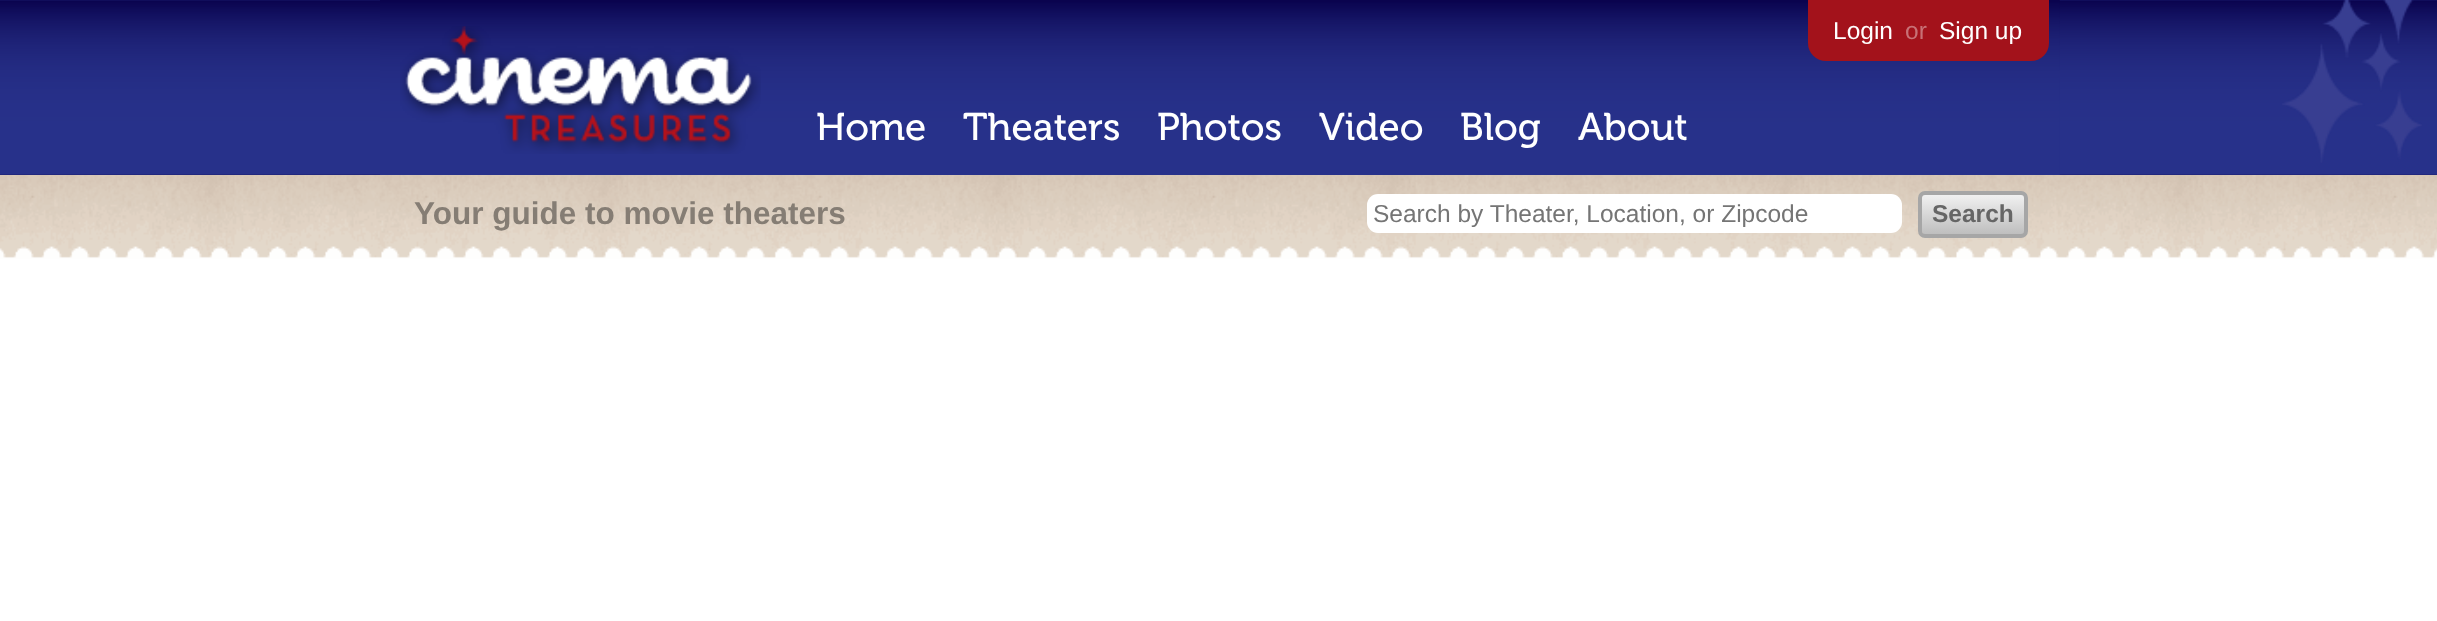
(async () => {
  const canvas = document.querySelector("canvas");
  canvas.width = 2437;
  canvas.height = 621;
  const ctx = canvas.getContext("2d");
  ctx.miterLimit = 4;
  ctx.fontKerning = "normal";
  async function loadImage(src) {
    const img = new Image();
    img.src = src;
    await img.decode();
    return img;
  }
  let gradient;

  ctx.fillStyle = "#ffffff";
  ctx.fillRect(0, 0, 2437, 621);
  ctx.drawImage(await loadImage("img/1.png"), 0, 0, 2437, 175);
  ctx.drawImage(await loadImage("img/2.png"), 380, 0, 1680, 175);
  ctx.drawImage(await loadImage("img/3.png"), 400, 26, 361, 128);
  ctx.fillStyle = "#a3121b";
  ctx.beginPath();
  ctx.roundRect(1808, 0, 241, 61, [0, 0, 18, 18]);
  ctx.fill();
  ctx.drawImage(await loadImage("img/4.png"), 2282, 0, 140, 163);
  ctx.drawImage(await loadImage("img/5.png"), 0, 175, 2437, 84);
  ctx.fillStyle = "#ffffff";
  ctx.beginPath();
  ctx.roundRect(1367, 194, 535, 39, 11);
  ctx.fill();
  gradient = ctx.createLinearGradient(1973, 194, 1973, 235);
  gradient.addColorStop(0, "#f2f2f2");
  gradient.addColorStop(1, "#bdbdbd");
  ctx.fillStyle = gradient;
  ctx.beginPath();
  ctx.roundRect(1922, 194, 103, 41, 4);
  ctx.fill();
  ctx.beginPath();
  ctx.roundRect(1920, 193, 106, 43, 5);
  ctx.strokeStyle = "#a6a6a6";
  ctx.lineWidth = 4;
  ctx.stroke();
  ctx.font = "38.5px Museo";
  ctx.fillStyle = "#ffffff";
  for (const [text, x, y] of [
    ["Home", 816, 140],
    ["Theaters", 963, 140],
    ["Photos", 1157, 140],
    ["Video", 1319, 140],
    ["Blog", 1460, 140],
    ["About", 1578, 140],
  ]) {
    ctx.fillText(text, x, y);
  }
  ctx.font = "24.5px Liberation Sans";
  ctx.fillText("Login", 1833, 39);
  ctx.fillStyle = "#c87176";
  ctx.fillText("or", 1905, 39);
  ctx.fillStyle = "#ffffff";
  ctx.fillText("Sign up", 1939, 39);
  ctx.font = "bold 31.5px Liberation Sans";
  ctx.fillStyle = "#857d74";
  ctx.fillText("Your guide to movie theaters", 414, 224);
  ctx.font = "24.5px Liberation Sans";
  ctx.fillStyle = "#757575";
  ctx.fillText("Search by Theater, Location, or Zipcode", 1373, 222);
  ctx.font = "bold 24.5px Liberation Sans";
  ctx.fillStyle = "#666666";
  ctx.fillText("Search", 1932, 222);
})();
